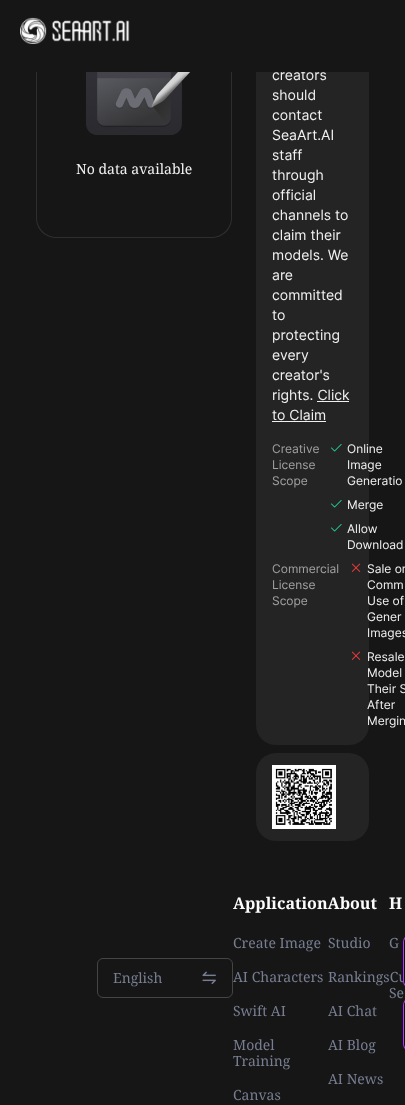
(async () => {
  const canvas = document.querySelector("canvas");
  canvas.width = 405;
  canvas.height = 1105;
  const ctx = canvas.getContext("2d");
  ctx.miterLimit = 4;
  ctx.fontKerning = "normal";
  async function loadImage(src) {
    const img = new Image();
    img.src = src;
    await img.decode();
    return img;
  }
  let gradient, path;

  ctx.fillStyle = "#161616";
  ctx.fillRect(0, 0, 405, 1105);
  ctx.fillStyle = "#2e2e2e";
  path = new Path2D("M56-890H212C223-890 232-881 232-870V218C232 229 223 238 212 238H56C45 238 36 229 36 218V-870C36-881 45-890 56-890ZM56-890H212C222-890 231-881 231-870V218C231 228 222 237 212 237H56C46 237 37 228 37 218V-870C37-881 46-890 56-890Z");
  ctx.fill(path, "evenodd");
  ctx.drawImage(await loadImage("img/2.png"), 86, 72, 104, 63);
  ctx.fillStyle = "#242424";
  ctx.beginPath();
  ctx.roundRect(256, -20, 113, 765, 20);
  ctx.fill();
  ctx.fillStyle = "#f0f0f0";
  ctx.fillRect(317, 401, 32, 1);
  ctx.fillRect(272, 421, 54, 1);
  ctx.drawImage(await loadImage("img/3.png"), 331, 444, 11, 8);
  ctx.drawImage(await loadImage("img/3.png"), 331, 500, 11, 8);
  ctx.drawImage(await loadImage("img/3.png"), 331, 524, 11, 8);
  ctx.drawImage(await loadImage("img/4.png"), 351, 563, 10, 9);
  ctx.drawImage(await loadImage("img/4.png"), 351, 651, 10, 9);
  ctx.fillStyle = "#242424";
  ctx.beginPath();
  ctx.roundRect(256, 753, 113, 88, 20);
  ctx.fill();
  ctx.fillStyle = "#ffffff";
  ctx.fillRect(272, 765, 64, 64);
  ctx.drawImage(await loadImage("img/5.png"), 275, 768, 57, 57);
  ctx.beginPath();
  ctx.roundRect(97.5, 958.5, 135, 39, 5.5);
  ctx.strokeStyle = "#454545";
  ctx.stroke();
  ctx.drawImage(await loadImage("img/6.png"), 202, 971, 14, 13);
  ctx.font = "14px Noto Serif";
  ctx.fillStyle = "#f0f0f0";
  ctx.fillText("No data available", 76, 174);
  ctx.font = "14px Inter";
  ctx.fillText("creators", 272, 80);
  ctx.fillStyle = "#161616";
  ctx.fillRect(36, 0, 333, 72);
  ctx.drawImage(await loadImage("img/1.png"), 20, 17, 110, 27);
  ctx.fillStyle = "#f0f0f0";
  for (const [text, x, y] of [
    ["should", 272, 100],
    ["contact", 272, 120],
    ["SeaArt.AI", 272, 140],
    ["staff", 272, 160],
    ["through", 272, 180],
    ["official", 272, 200],
    ["channels to", 272, 220],
    ["claim their", 272, 240],
    ["models. We", 272, 260],
    ["are", 272, 280],
    ["committed", 272, 300],
    ["to", 272, 320],
    ["protecting", 272, 340],
    ["every", 272, 360],
    ["creator's", 272, 380],
    ["rights. Click", 272, 400],
    ["to Claim", 272, 420],
  ]) {
    ctx.fillText(text, x, y);
  }
  ctx.font = "12px Inter";
  ctx.fillStyle = "#a1a1a1";
  for (const [text, x, y] of [
    ["Creative", 272, 453],
    ["License", 272, 469],
    ["Scope", 272, 485],
  ]) {
    ctx.fillText(text, x, y);
  }
  ctx.fillStyle = "#f0f0f0";
  for (const [text, x, y] of [
    ["Online", 347, 453],
    ["Image", 347, 469],
    ["Generatio", 347, 485],
    ["Merge", 347, 509],
    ["Allow", 347, 533],
    ["Download", 347, 549],
  ]) {
    ctx.fillText(text, x, y);
  }
  ctx.fillStyle = "#a1a1a1";
  for (const [text, x, y] of [
    ["Commercial", 272, 573],
    ["License", 272, 589],
    ["Scope", 272, 605],
  ]) {
    ctx.fillText(text, x, y);
  }
  ctx.fillStyle = "#f0f0f0";
  for (const [text, x, y] of [
    ["Sale or", 367, 573],
    ["Comm", 367, 589],
    ["Use of", 367, 605],
    ["Gener", 367, 621],
    ["Images", 367, 637],
    ["Resale", 367, 661],
    ["Model", 367, 677],
    ["Their S", 367, 693],
    ["After", 367, 709],
    ["Mergin", 367, 725],
  ]) {
    ctx.fillText(text, x, y);
  }
  ctx.font = "14px Noto Serif";
  ctx.fillStyle = "#777e91";
  ctx.fillText("English", 113, 983);
  ctx.font = "bold 16px Noto Serif";
  ctx.fillStyle = "#fcfcfd";
  ctx.fillText("ApplicationAbout", 233, 909);
  ctx.font = "14px Noto Serif";
  ctx.fillStyle = "#777e91";
  for (const [text, x, y] of [
    ["Create Image", 233, 948],
    ["AI Characters", 233, 982],
    ["Swift AI", 233, 1016],
    ["Model", 233, 1050],
    ["Training", 233, 1066],
    ["Canvas", 233, 1100],
  ]) {
    ctx.fillText(text, x, y);
  }
  ctx.font = "bold 16px Noto Serif";
  ctx.fillStyle = "#fcfcfd";
  ctx.fillText("H", 389, 909);
  ctx.font = "14px Noto Serif";
  ctx.fillStyle = "#777e91";
  for (const [text, x, y] of [
    ["G", 389, 948],
    ["Se", 389, 998],
    ["Studio", 328, 948],
    ["RankingsCu", 328, 982],
    ["AI Chat", 328, 1016],
    ["AI Blog", 328, 1050],
    ["AI News", 328, 1084],
  ]) {
    ctx.fillText(text, x, y);
  }
  gradient = ctx.createLinearGradient(403, 962, 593, 962);
  gradient.addColorStop(0, "#ae3dfa");
  gradient.addColorStop(1, "#0099ff");
  ctx.fillStyle = gradient;
  ctx.beginPath();
  ctx.roundRect(403, 935, 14, 53, 12);
  ctx.fill();
  ctx.fillStyle = "#0a0b17";
  ctx.beginPath();
  ctx.roundRect(404, 936, 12, 51, 11);
  ctx.fill();
  gradient = ctx.createLinearGradient(403, 1025, 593, 1025);
  gradient.addColorStop(0, "#ae3dfa");
  gradient.addColorStop(1, "#0099ff");
  ctx.fillStyle = gradient;
  ctx.beginPath();
  ctx.roundRect(403, 998, 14, 53, 12);
  ctx.fill();
  ctx.fillStyle = "#0a0b17";
  ctx.beginPath();
  ctx.roundRect(404, 999, 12, 51, 11);
  ctx.fill();
})();
